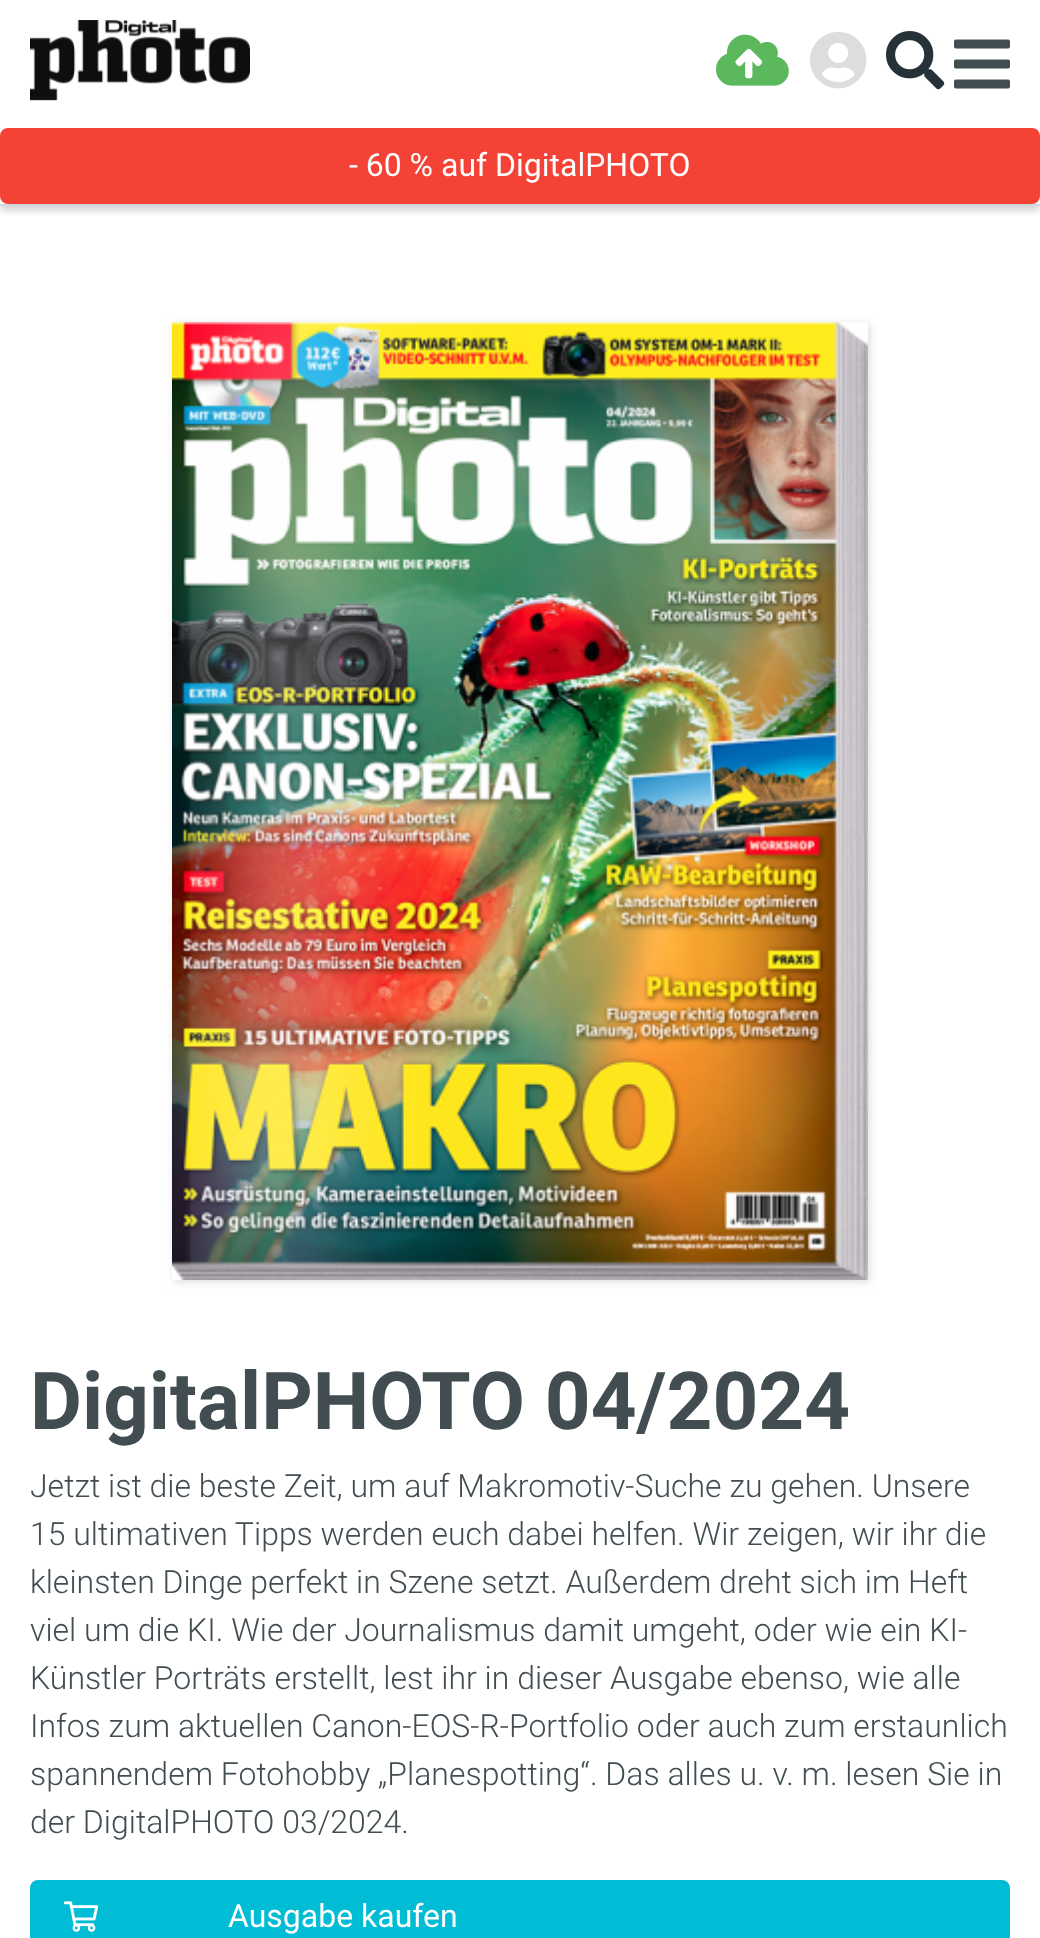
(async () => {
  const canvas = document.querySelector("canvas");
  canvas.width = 1040;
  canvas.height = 1938;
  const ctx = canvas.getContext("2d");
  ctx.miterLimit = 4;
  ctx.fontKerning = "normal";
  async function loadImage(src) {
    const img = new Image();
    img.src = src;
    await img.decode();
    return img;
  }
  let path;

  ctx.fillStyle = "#ffffff";
  ctx.fillRect(0, 0, 1040, 1938);
  ctx.save();
  ctx.beginPath();
  ctx.rect(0, 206, 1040, 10);
  ctx.clip();
  ctx.fillStyle = "rgba(0, 0, 0, 0.2)";
  ctx.filter = "blur(5px)";
  ctx.beginPath();
  ctx.rect(0, 4, 1040, 206);
  ctx.fill();
  ctx.filter = "none";
  ctx.restore();
  ctx.fillStyle = "#cfd8dc";
  ctx.fillRect(0, 204, 1040, 2);
  ctx.drawImage(await loadImage("img/1.png"), 30, 20, 220, 81);
  ctx.drawImage(await loadImage("img/2.png"), 716, 34, 73, 52);
  ctx.drawImage(await loadImage("img/3.png"), 810, 32, 57, 57);
  ctx.drawImage(await loadImage("img/4.png"), 886, 31, 59, 59);
  ctx.drawImage(await loadImage("img/5.png"), 954, 39, 56, 50);
  ctx.fillStyle = "#f44336";
  ctx.beginPath();
  ctx.roundRect(1, 129, 1038, 74, 7);
  ctx.fill();
  ctx.strokeStyle = "#f44336";
  ctx.lineWidth = 2;
  ctx.stroke();
  ctx.save();
  path = new Path2D("M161 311H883V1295H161ZM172 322H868V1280H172Z");
  ctx.clip(path, "evenodd");
  ctx.fillStyle = "#dddddd";
  ctx.filter = "blur(4px)";
  ctx.beginPath();
  ctx.rect(174, 324, 696, 958);
  ctx.fill();
  ctx.filter = "none";
  ctx.restore();
  ctx.drawImage(await loadImage("img/6.png"), 172, 322, 696, 958);
  ctx.fillStyle = "#00bcd4";
  ctx.beginPath();
  ctx.roundRect(31, 1881, 978, 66, 7);
  ctx.fill();
  ctx.strokeStyle = "#00bcd4";
  ctx.stroke();
  ctx.drawImage(await loadImage("img/7.png"), 64, 1901, 35, 31);
  ctx.font = "32px Roboto";
  ctx.fillStyle = "#ffffff";
  ctx.fillText("- 60 % auf DigitalPHOTO", 349, 176);
  ctx.font = "bold 80px Roboto";
  ctx.fillStyle = "#424d52";
  ctx.fillText("DigitalPHOTO 04/2024", 30, 1429);
  ctx.font = "300 32px Roboto";
  for (const [text, x, y] of [
    ["Jetzt ist die beste Zeit, um auf Makromotiv-Suche zu gehen. Unsere", 30, 1497],
    ["15 ultimativen Tipps werden euch dabei helfen. Wir zeigen, wir ihr die", 30, 1545],
    ["kleinsten Dinge perfekt in Szene setzt. Außerdem dreht sich im Heft", 30, 1593],
    ["viel um die KI. Wie der Journalismus damit umgeht, oder wie ein KI-", 30, 1641],
    ["Künstler Porträts erstellt, lest ihr in dieser Ausgabe ebenso, wie alle", 30, 1689],
    ["Infos zum aktuellen Canon-EOS-R-Portfolio oder auch zum erstaunlich", 30, 1737],
    ["spannendem Fotohobby „Planespotting“. Das alles u. v. m. lesen Sie in", 30, 1785],
    ["der DigitalPHOTO 03/2024.", 30, 1833],
  ]) {
    ctx.fillText(text, x, y);
  }
  ctx.font = "32px Roboto";
  ctx.fillStyle = "#ffffff";
  ctx.fillText("Ausgabe kaufen", 228, 1927);
})();
